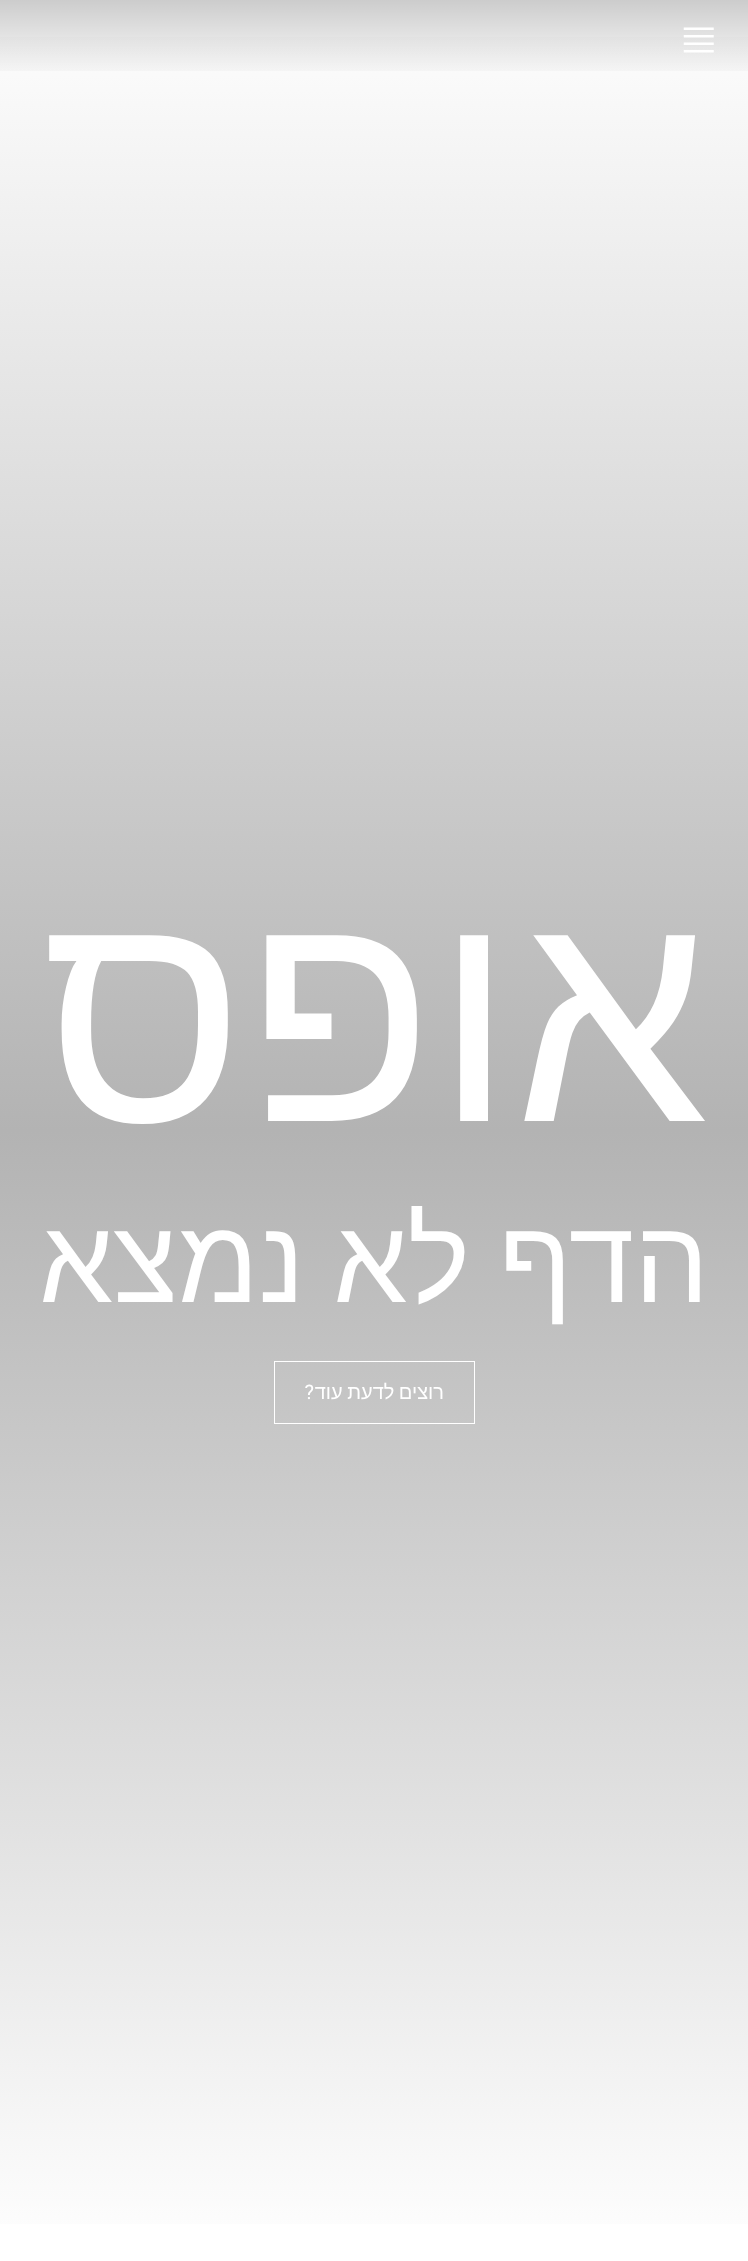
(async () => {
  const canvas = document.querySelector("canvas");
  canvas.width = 748;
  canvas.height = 2261;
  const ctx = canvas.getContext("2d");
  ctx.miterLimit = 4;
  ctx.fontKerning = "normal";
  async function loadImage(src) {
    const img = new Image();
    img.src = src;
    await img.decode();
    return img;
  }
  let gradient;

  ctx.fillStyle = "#ffffff";
  ctx.fillRect(0, 0, 748, 2261);
  gradient = ctx.createLinearGradient(374, 2261, 374, 0);
  gradient.addColorStop(0, "#ffffff");
  gradient.addColorStop(0.5, "#b3b3b3");
  gradient.addColorStop(1, "#ffffff");
  ctx.fillStyle = gradient;
  ctx.fillRect(0, 37, 748, 2187);
  gradient = ctx.createLinearGradient(374, 80, 374, 0);
  gradient.addColorStop(0, "rgba(0, 0, 0, 0)");
  gradient.addColorStop(1, "rgba(0, 0, 0, 0.2)");
  ctx.fillStyle = gradient;
  ctx.fillRect(0, 0, 748, 71);
  ctx.drawImage(await loadImage("img/1.png"), 683, 27, 31, 26);
  ctx.strokeStyle = "#ffffff";
  ctx.strokeRect(274.5, 1361.5, 200, 62);
  ctx.direction = "rtl";
  ctx.font = "310px Liberation Sans";
  ctx.fillStyle = "#ffffff";
  ctx.fillText("אופס", 709, 1121);
  ctx.wordSpacing = "-4px";
  ctx.font = "118px Liberation Sans";
  ctx.fillText("הדף לא נמצא", 709, 1302);
  ctx.wordSpacing = "-1px";
  ctx.font = "20px Liberation Sans";
  ctx.fillText("רוצים לדעת עוד", 444, 1399);
  ctx.wordSpacing = "0px";
  ctx.font = "20px Roboto";
  ctx.fillText("?", 314, 1399);
})();
